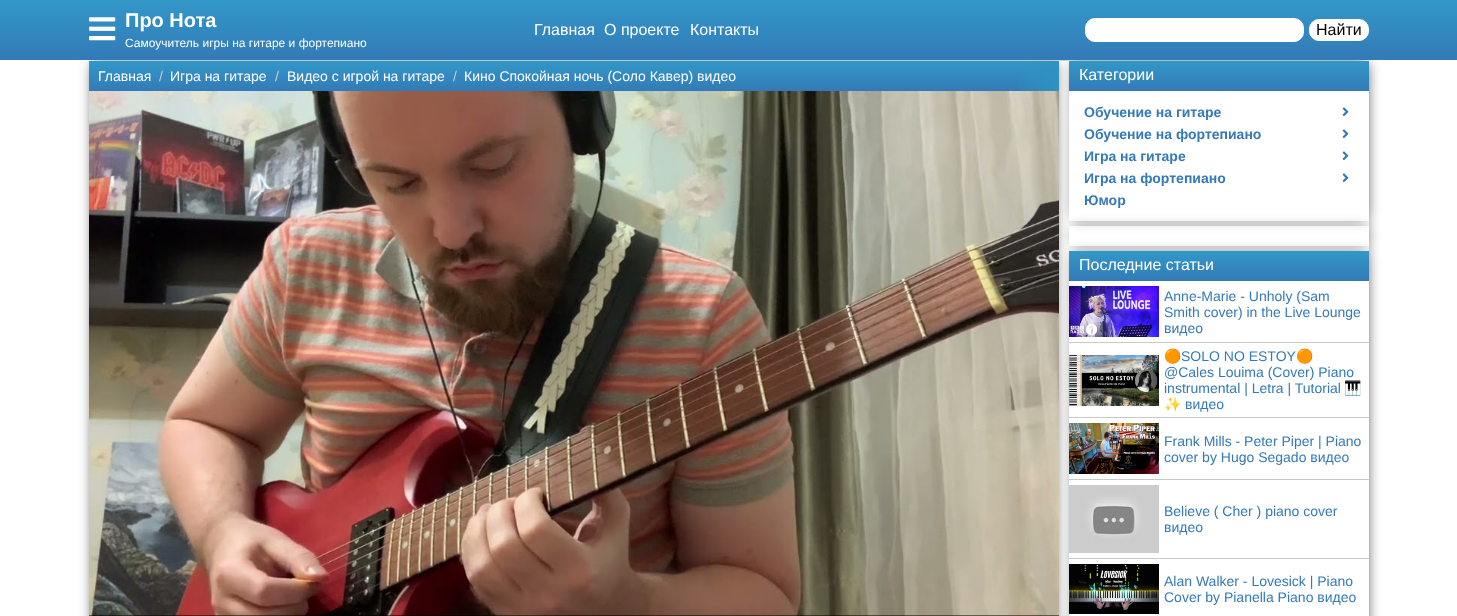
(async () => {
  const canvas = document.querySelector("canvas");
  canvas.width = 1457;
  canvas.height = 616;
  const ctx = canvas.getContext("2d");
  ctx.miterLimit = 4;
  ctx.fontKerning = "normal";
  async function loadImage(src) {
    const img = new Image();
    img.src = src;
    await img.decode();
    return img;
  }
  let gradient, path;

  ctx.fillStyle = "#ffffff";
  ctx.fillRect(0, 0, 1457, 616);
  ctx.save();
  path = new Path2D("M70 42H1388V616H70ZM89 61H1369V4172H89Z");
  ctx.clip(path, "evenodd");
  ctx.fillStyle = "rgba(15, 15, 15, 0.5)";
  ctx.filter = "blur(7px)";
  ctx.beginPath();
  ctx.rect(92, 64, 1274, 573);
  ctx.fill();
  ctx.filter = "none";
  ctx.restore();
  ctx.fillStyle = "rgba(15, 15, 15, 0.5)";
  ctx.filter = "blur(4px)";
  ctx.beginPath();
  ctx.rect(94, 64, 964, 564);
  ctx.fill();
  ctx.filter = "none";
  gradient = ctx.createLinearGradient(574, 61, 574, 91);
  gradient.addColorStop(0, "#3298c8");
  gradient.addColorStop(1, "#337ab7");
  ctx.fillStyle = gradient;
  ctx.fillRect(89, 61, 970, 30);
  ctx.drawImage(await loadImage("img/2.png"), 89, 91, 970, 525);
  ctx.save();
  path = new Path2D("M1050 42H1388V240H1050ZM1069 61H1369V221H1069Z");
  ctx.clip(path, "evenodd");
  ctx.fillStyle = "rgba(15, 15, 15, 0.5)";
  ctx.filter = "blur(7px)";
  ctx.beginPath();
  ctx.rect(1072, 64, 294, 154);
  ctx.fill();
  ctx.filter = "none";
  ctx.restore();
  gradient = ctx.createLinearGradient(729, 0, 729, 60);
  gradient.addColorStop(0, "#3298c8");
  gradient.addColorStop(1, "#337ab7");
  ctx.fillStyle = gradient;
  ctx.fillRect(0, 0, 1457, 60);
  ctx.drawImage(await loadImage("img/1.png"), 89, 17, 27, 24);
  ctx.fillStyle = "#ffffff";
  ctx.beginPath();
  ctx.roundRect(1085.5, 18.5, 218, 23, 9.5);
  ctx.fill();
  ctx.strokeStyle = "#ffffff";
  ctx.stroke();
  ctx.beginPath();
  ctx.roundRect(1309.5, 19.5, 59, 21, 9.5);
  ctx.fill();
  ctx.stroke();
  gradient = ctx.createLinearGradient(1019, 76, 1059, 76);
  gradient.addColorStop(0, "rgba(48, 146, 192, 0.2)");
  gradient.addColorStop(1, "#3092c0");
  ctx.fillStyle = gradient;
  ctx.fillRect(1019, 61, 40, 30);
  ctx.save();
  path = new Path2D("M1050 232H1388V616H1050ZM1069 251H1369V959H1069Z");
  ctx.clip(path, "evenodd");
  ctx.fillStyle = "rgba(15, 15, 15, 0.5)";
  ctx.filter = "blur(7px)";
  ctx.beginPath();
  ctx.rect(1072, 254, 294, 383);
  ctx.fill();
  ctx.filter = "none";
  ctx.restore();
  ctx.fillStyle = "rgba(0, 0, 0, 0.5)";
  ctx.fillRect(89, 615, 970, 1);
  gradient = ctx.createLinearGradient(1219, 61, 1219, 91);
  gradient.addColorStop(0, "#3298c8");
  gradient.addColorStop(1, "#337ab7");
  ctx.fillStyle = gradient;
  ctx.fillRect(1069, 61, 300, 30);
  ctx.drawImage(await loadImage("img/3.png"), 1342, 107, 7, 10);
  ctx.drawImage(await loadImage("img/3.png"), 1342, 129, 7, 10);
  ctx.drawImage(await loadImage("img/3.png"), 1342, 151, 7, 10);
  ctx.drawImage(await loadImage("img/3.png"), 1342, 173, 7, 10);
  ctx.save();
  path = new Path2D("M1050 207H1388V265H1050ZM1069 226H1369V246H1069Z");
  ctx.clip(path, "evenodd");
  ctx.fillStyle = "rgba(15, 15, 15, 0.5)";
  ctx.filter = "blur(7px)";
  ctx.beginPath();
  ctx.rect(1072, 229, 294, 14);
  ctx.fill();
  ctx.filter = "none";
  ctx.restore();
  gradient = ctx.createLinearGradient(1219, 251, 1219, 281);
  gradient.addColorStop(0, "#3298c8");
  gradient.addColorStop(1, "#337ab7");
  ctx.fillStyle = gradient;
  ctx.fillRect(1069, 251, 300, 30);
  ctx.fillStyle = "#c9c9c9";
  ctx.fillRect(1069, 342, 300, 1);
  ctx.drawImage(await loadImage("img/4.png"), 1069, 286, 90, 51);
  ctx.fillRect(1069, 417, 300, 1);
  ctx.drawImage(await loadImage("img/5.png"), 1069, 355, 90, 51);
  ctx.fillRect(1069, 479, 300, 1);
  ctx.drawImage(await loadImage("img/6.png"), 1069, 423, 90, 51);
  ctx.fillRect(1069, 558, 300, 1);
  ctx.drawImage(await loadImage("img/7.png"), 1069, 485, 90, 68);
  ctx.drawImage(await loadImage("img/8.png"), 1069, 564, 90, 50);
  ctx.font = "bold 20px Liberation Sans";
  ctx.fillStyle = "#ffffff";
  ctx.fillText("Про Нота", 125, 27);
  ctx.font = "12px Liberation Sans";
  ctx.fillText("Самоучитель игры на гитаре и фортепиано", 125, 47);
  ctx.font = "16px Liberation Sans";
  for (const [text, x, y] of [
    ["Главная", 534, 35],
    ["О проекте", 604, 35],
    ["Контакты", 690, 35],
  ]) {
    ctx.fillText(text, x, y);
  }
  ctx.fillStyle = "#000000";
  ctx.fillText("Найти", 1316, 35);
  ctx.font = "14px Liberation Sans";
  ctx.fillStyle = "#ffffff";
  ctx.fillText("Главная", 98, 81);
  ctx.fillStyle = "#cccccc";
  ctx.fillText("/", 159, 81);
  ctx.fillStyle = "#ffffff";
  ctx.fillText("Игра на гитаре", 170, 81);
  ctx.fillStyle = "#cccccc";
  ctx.fillText("/", 275, 81);
  ctx.fillStyle = "#ffffff";
  ctx.fillText("Видео с игрой на гитаре", 287, 81);
  ctx.fillStyle = "#cccccc";
  ctx.fillText("/", 453, 81);
  ctx.fillStyle = "#ffffff";
  ctx.fillText("Кино Спокойная ночь (Соло Кавер) видео", 464, 81);
  ctx.font = "16px Liberation Sans";
  ctx.fillText("Категории", 1079, 80);
  ctx.font = "bold 14px Liberation Sans";
  ctx.fillStyle = "#337ab7";
  for (const [text, x, y] of [
    ["Обучение на гитаре", 1084, 117],
    ["Обучение на фортепиано", 1084, 139],
    ["Игра на гитаре", 1084, 161],
    ["Игра на фортепиано", 1084, 183],
    ["Юмор", 1084, 205],
  ]) {
    ctx.fillText(text, x, y);
  }
  ctx.font = "16px Liberation Sans";
  ctx.fillStyle = "#ffffff";
  ctx.fillText("Последние статьи", 1079, 270);
  ctx.font = "14px Liberation Sans";
  ctx.fillStyle = "#337ab7";
  for (const [text, x, y] of [
    ["Anne-Marie - Unholy (Sam", 1164, 301],
    ["Smith cover) in the Live Lounge", 1164, 317],
    ["видео", 1164, 333],
  ]) {
    ctx.fillText(text, x, y);
  }
  ctx.font = "14px Noto Color Emoji";
  ctx.fillText("🟠", 1164, 361);
  ctx.font = "14px Liberation Sans";
  ctx.fillText("SOLO NO ESTOY", 1181, 361);
  ctx.font = "14px Noto Color Emoji";
  ctx.fillText("🟠", 1296, 361);
  ctx.font = "14px Liberation Sans";
  ctx.fillText("@Cales Louima (Cover) Piano", 1164, 377);
  ctx.fillText("instrumental | Letra | Tutorial", 1164, 393);
  ctx.font = "14px Noto Color Emoji";
  ctx.fillText("🎹", 1344, 393);
  ctx.fillText("✨", 1164, 409);
  ctx.font = "14px Liberation Sans";
  for (const [text, x, y] of [
    ["видео", 1185, 409],
    ["Frank Mills - Peter Piper | Piano", 1164, 446],
    ["cover by Hugo Segado видео", 1164, 462],
    ["Believe ( Cher ) piano cover", 1164, 516],
    ["видео", 1164, 532],
    ["Alan Walker - Lovesick | Piano", 1164, 586],
    ["Cover by Pianella Piano видео", 1164, 602],
  ]) {
    ctx.fillText(text, x, y);
  }
})();
